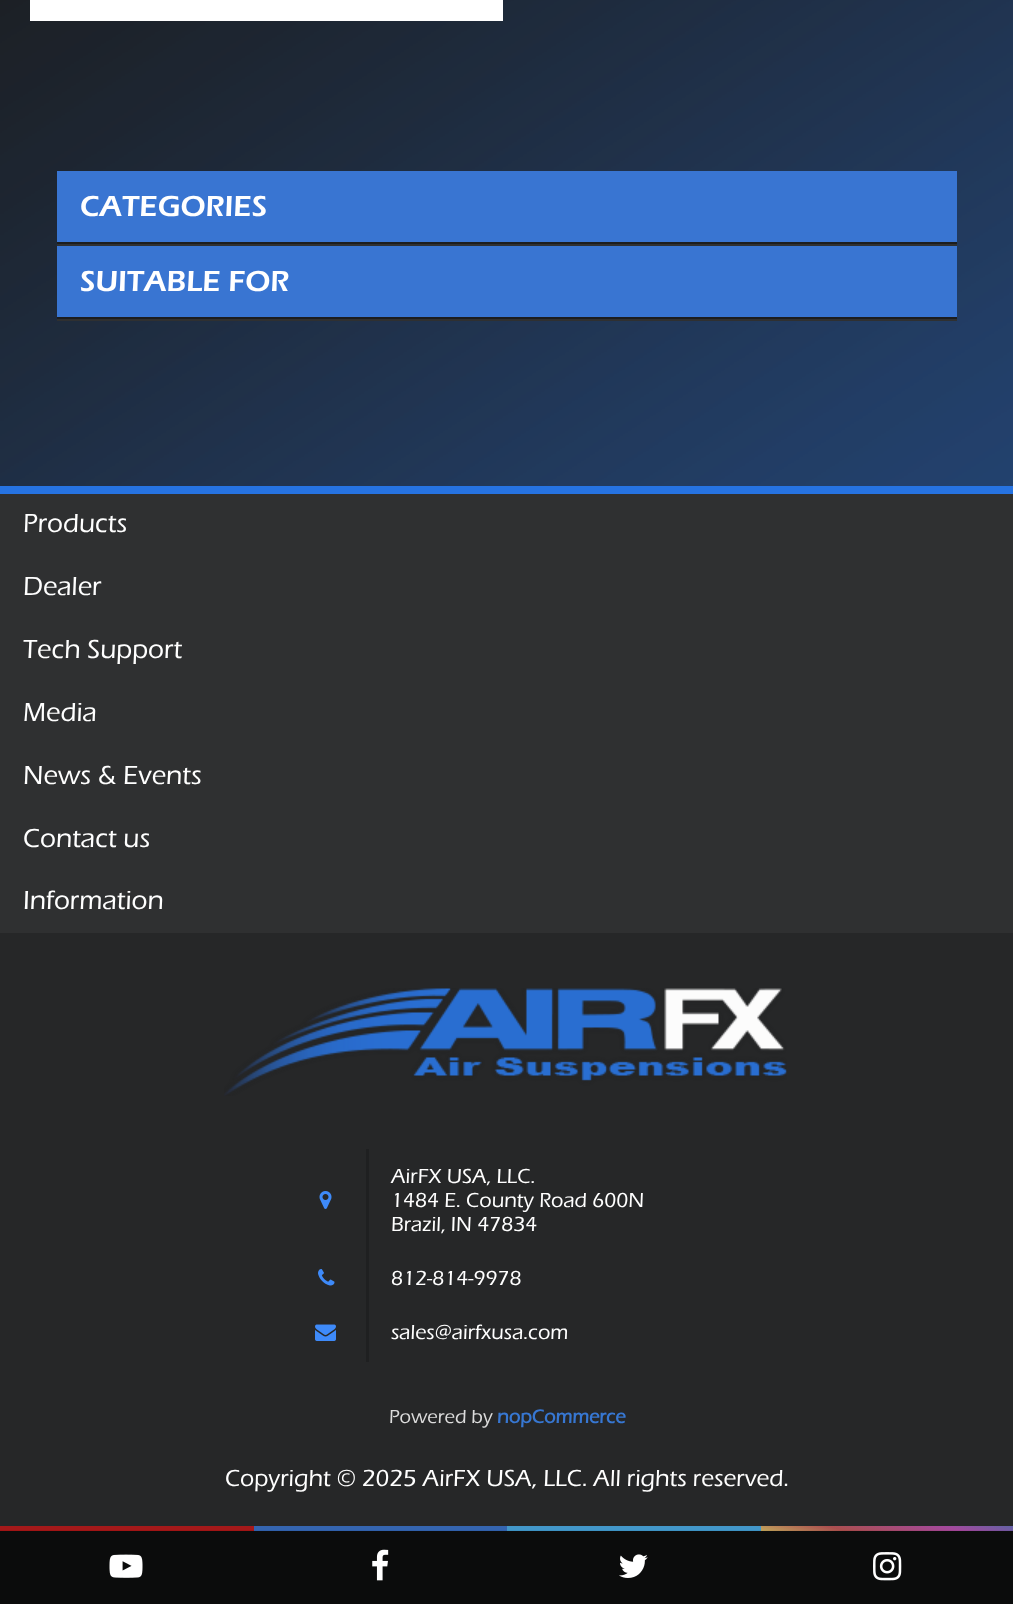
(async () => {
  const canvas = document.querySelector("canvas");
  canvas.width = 1013;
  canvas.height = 1604;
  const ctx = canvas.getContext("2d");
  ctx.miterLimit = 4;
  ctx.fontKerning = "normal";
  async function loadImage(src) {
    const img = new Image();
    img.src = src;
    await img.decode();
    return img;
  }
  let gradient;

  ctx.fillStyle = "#1c1d1e";
  ctx.fillRect(0, 0, 1013, 1604);
  ctx.drawImage(await loadImage("img/1.png"), 0, 0, 1013, 486);
  for (const [x, y, w, h, color] of [
    [30, 0, 473, 21, "#ffffff"],
    [57, 244, 900, 2, "#2f3031"],
    [57, 171, 900, 71, "#3975d2"],
    [57, 242, 900, 2, "#1c1d1e"],
    [57, 319, 900, 2, "#2f3031"],
    [57, 246, 900, 71, "#3975d2"],
    [57, 317, 900, 2, "#1c1d1e"],
    [0, 494, 1013, 439, "#2f3031"],
    [0, 486, 1013, 8, "#2673e2"],
    [0, 933, 1013, 597, "#262728"],
  ]) {
    ctx.fillStyle = color;
    ctx.fillRect(x, y, w, h);
  }
  ctx.drawImage(await loadImage("img/2.png"), 224, 988, 563, 108);
  ctx.drawImage(await loadImage("img/3.png"), 319, 1191, 13, 18);
  ctx.drawImage(await loadImage("img/4.png"), 318, 1269, 17, 17);
  ctx.fillStyle = "#1f2021";
  ctx.fillRect(366, 1149, 3, 213);
  ctx.drawImage(await loadImage("img/5.png"), 315, 1324, 21, 17);
  for (const [x, y, w, h, color] of [
    [507, 1526, 254, 4, "#4397c9"],
    [254, 1526, 253, 4, "#3565b0"],
    [0, 1526, 254, 4, "#a5191a"],
    [0, 1531, 761, 73, "#0b0c0c"],
    [0, 1530, 254, 1, "#a01414"],
  ]) {
    ctx.fillStyle = color;
    ctx.fillRect(x, y, w, h);
  }
  ctx.drawImage(await loadImage("img/6.png"), 109, 1554, 34, 24);
  ctx.fillStyle = "#0b0c0c";
  ctx.fillRect(761, 1530, 252, 74);
  gradient = ctx.createLinearGradient(878, 1562, 896, 1494);
  gradient.addColorStop(0, "rgba(232, 198, 106, 0.8)");
  gradient.addColorStop(0.31, "rgba(204, 89, 89, 0.8)");
  gradient.addColorStop(0.73, "rgba(196, 82, 186, 0.8)");
  gradient.addColorStop(1, "rgba(107, 116, 198, 0.8)");
  ctx.fillStyle = gradient;
  ctx.fillRect(761, 1526, 252, 5);
  ctx.drawImage(await loadImage("img/7.png"), 873, 1552, 29, 29);
  ctx.fillStyle = "#3060aa";
  ctx.fillRect(254, 1530, 253, 1);
  ctx.drawImage(await loadImage("img/8.png"), 372, 1549, 17, 32);
  ctx.fillStyle = "#3d92c3";
  ctx.fillRect(507, 1530, 254, 1);
  ctx.drawImage(await loadImage("img/9.png"), 619, 1554, 29, 24);
  ctx.font = "30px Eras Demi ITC";
  ctx.fillStyle = "#ffffff";
  ctx.fillText("CATEGORIES", 80, 216);
  ctx.fillText("SUITABLE FOR", 80, 291);
  ctx.font = "500 27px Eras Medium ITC";
  for (const [text, x, y] of [
    ["Products", 23, 532],
    ["Dealer", 23, 595],
    ["Tech Support", 23, 658],
    ["Media", 23, 721],
    ["News & Events", 23, 784],
    ["Contact us", 23, 847],
    ["Information", 23, 909],
  ]) {
    ctx.fillText(text, x, y);
  }
  ctx.font = "500 21px Eras Medium ITC";
  for (const [text, x, y] of [
    ["AirFX USA, LLC.", 391, 1183],
    ["1484 E. County Road 600N", 391, 1207],
    ["Brazil, IN 47834", 391, 1231],
    ["812-814-9978", 391, 1285],
    ["sales@airfxusa.com", 391, 1339],
  ]) {
    ctx.fillText(text, x, y);
  }
  ctx.font = "500 19.5px Eras Medium ITC";
  ctx.fillStyle = "#dcdcdc";
  ctx.fillText("Powered by", 389, 1423);
  ctx.font = "bold 19.5px Eras Medium ITC";
  ctx.fillStyle = "#3777d2";
  ctx.fillText("nopCommerce", 497, 1423);
  ctx.font = "500 24px Eras Medium ITC";
  ctx.fillStyle = "#ffffff";
  ctx.fillText("Copyright © 2025 AirFX USA, LLC. All rights reserved.", 225, 1486);
})();
